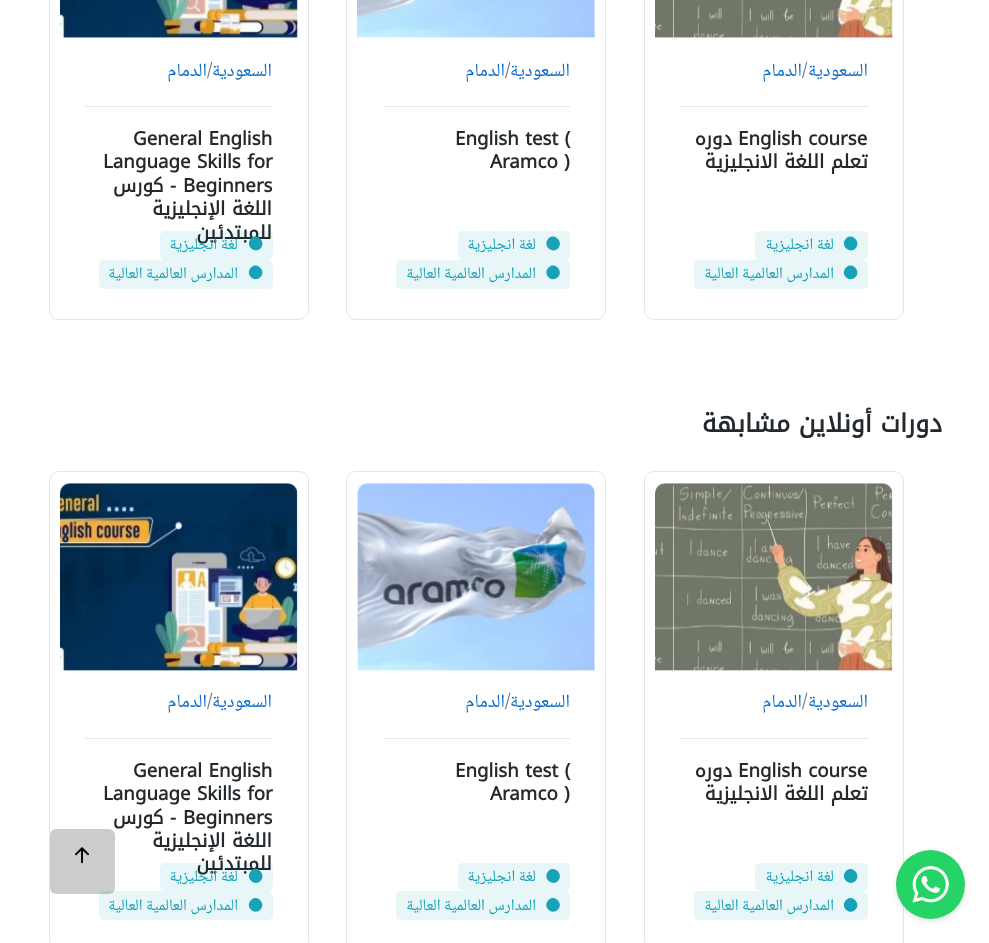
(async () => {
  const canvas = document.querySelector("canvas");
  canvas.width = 989;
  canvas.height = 943;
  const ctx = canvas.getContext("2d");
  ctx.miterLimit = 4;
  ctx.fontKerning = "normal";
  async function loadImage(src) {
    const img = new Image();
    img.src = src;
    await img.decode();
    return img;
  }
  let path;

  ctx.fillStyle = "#ffffff";
  ctx.fillRect(0, 0, 989, 943);
  ctx.beginPath();
  ctx.roundRect(644.5, -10.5, 259, 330, 9.5);
  ctx.strokeStyle = "#e6e6e6";
  ctx.stroke();
  ctx.drawImage(await loadImage("img/1.png"), 655, 0, 238, 38);
  ctx.fillStyle = "#e6e7e8";
  ctx.fillRect(680, 106, 188, 1);
  ctx.fillStyle = "#e8f6f8";
  ctx.beginPath();
  ctx.roundRect(755, 231, 113, 29, 5);
  ctx.fill();
  ctx.fillStyle = "#17a2b8";
  path = new Path2D("M846 238.5C852 232.5 861.5 242 855.5 248.5C849 254.5 839.5 245 846 238.5Z");
  ctx.fill(path);
  ctx.fillStyle = "#e8f6f8";
  ctx.beginPath();
  ctx.roundRect(694, 260, 174, 29, 5);
  ctx.fill();
  ctx.fillStyle = "#17a2b8";
  path = new Path2D("M846 267.5C852 261 861.5 271 855.5 277C849 283.5 839.5 274 846 267.5Z");
  ctx.fill(path);
  ctx.beginPath();
  ctx.roundRect(346.5, -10.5, 259, 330, 9.5);
  ctx.stroke();
  ctx.drawImage(await loadImage("img/2.png"), 357, 0, 238, 38);
  ctx.fillStyle = "#e6e7e8";
  ctx.fillRect(383, 106, 187, 1);
  ctx.fillStyle = "#e8f6f8";
  ctx.beginPath();
  ctx.roundRect(458, 231, 112, 29, 5);
  ctx.fill();
  ctx.fillStyle = "#17a2b8";
  path = new Path2D("M548.5 238.5C554.5 232.5 564 242 558 248.5C551.5 254.5 542 245 548.5 238.5Z");
  ctx.fill(path);
  ctx.fillStyle = "#e8f6f8";
  ctx.beginPath();
  ctx.roundRect(396, 260, 174, 29, 5);
  ctx.fill();
  ctx.fillStyle = "#17a2b8";
  path = new Path2D("M548.5 267.5C554.5 261 564 271 558 277C551.5 283.5 542 274 548.5 267.5Z");
  ctx.fill(path);
  ctx.beginPath();
  ctx.roundRect(49.5, -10.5, 259, 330, 9.5);
  ctx.stroke();
  ctx.drawImage(await loadImage("img/3.png"), 60, 0, 238, 38);
  ctx.fillStyle = "#e6e7e8";
  ctx.fillRect(85, 106, 188, 1);
  ctx.fillStyle = "rgba(23, 162, 184, 0.1)";
  ctx.beginPath();
  ctx.roundRect(160, 231, 113, 29, 5);
  ctx.fill();
  ctx.fillStyle = "#e8f6f8";
  ctx.beginPath();
  ctx.roundRect(99, 260, 174, 29, 5);
  ctx.fill();
  ctx.fillStyle = "#17a2b8";
  path = new Path2D("M251 267.5C257 261 266.5 271 260.5 277C254 283.5 244.5 274 251 267.5Z");
  ctx.fill(path);
  ctx.beginPath();
  ctx.roundRect(644.5, 471.5, 259, 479, 9.5);
  ctx.stroke();
  ctx.drawImage(await loadImage("img/4.png"), 655, 483, 238, 188);
  ctx.fillStyle = "#e6e7e8";
  ctx.fillRect(680, 738, 188, 1);
  ctx.fillStyle = "#e8f6f8";
  ctx.beginPath();
  ctx.roundRect(755, 863, 113, 28, 5);
  ctx.fill();
  ctx.fillStyle = "#17a2b8";
  path = new Path2D("M846 871C852 865 861.5 874.5 855.5 881C849 887 839.5 877.5 846 871Z");
  ctx.fill(path);
  ctx.fillStyle = "#e8f6f8";
  ctx.beginPath();
  ctx.roundRect(694, 891, 174, 29, 5);
  ctx.fill();
  ctx.fillStyle = "#17a2b8";
  path = new Path2D("M846 900C852 893.5 861.5 903.5 855.5 909.5C849 916 839.5 906.5 846 900Z");
  ctx.fill(path);
  ctx.beginPath();
  ctx.roundRect(346.5, 471.5, 259, 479, 9.5);
  ctx.stroke();
  ctx.drawImage(await loadImage("img/5.png"), 357, 483, 238, 188);
  ctx.fillStyle = "#e6e7e8";
  ctx.fillRect(383, 738, 187, 1);
  ctx.fillStyle = "#e8f6f8";
  ctx.beginPath();
  ctx.roundRect(458, 863, 112, 28, 5);
  ctx.fill();
  ctx.fillStyle = "#17a2b8";
  path = new Path2D("M548.5 871C554.5 865 564 874.5 558 881C551.5 887 542 877.5 548.5 871Z");
  ctx.fill(path);
  ctx.fillStyle = "#e8f6f8";
  ctx.beginPath();
  ctx.roundRect(396, 891, 174, 29, 5);
  ctx.fill();
  ctx.fillStyle = "#17a2b8";
  path = new Path2D("M548.5 900C554.5 893.5 564 903.5 558 909.5C551.5 916 542 906.5 548.5 900Z");
  ctx.fill(path);
  ctx.beginPath();
  ctx.roundRect(49.5, 471.5, 259, 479, 9.5);
  ctx.stroke();
  ctx.drawImage(await loadImage("img/6.png"), 60, 483, 238, 188);
  ctx.fillStyle = "#e6e7e8";
  ctx.fillRect(85, 738, 188, 1);
  ctx.fillStyle = "rgba(23, 162, 184, 0.1)";
  ctx.beginPath();
  ctx.roundRect(160, 863, 113, 28, 5);
  ctx.fill();
  ctx.fillStyle = "#e8f6f8";
  ctx.beginPath();
  ctx.roundRect(99, 891, 174, 29, 5);
  ctx.fill();
  ctx.fillStyle = "#17a2b8";
  path = new Path2D("M251 900C257 893.5 266.5 903.5 260.5 909.5C254 916 244.5 906.5 251 900Z");
  ctx.fill(path);
  ctx.fillStyle = "rgba(0, 0, 0, 0.2)";
  ctx.beginPath();
  ctx.roundRect(50, 829, 65, 65, 6);
  ctx.fill();
  ctx.drawImage(await loadImage("img/7.png"), 75, 847, 14, 17);
  ctx.fillStyle = "rgba(0, 0, 0, 0.1)";
  ctx.filter = "blur(3px)";
  ctx.beginPath();
  ctx.roundRect(896, 853, 69, 68, 34);
  ctx.fill();
  ctx.filter = "none";
  ctx.fillStyle = "#25d366";
  ctx.beginPath();
  ctx.arc(930.5, 884.5, 34.5, 0, Math.PI * 2);
  ctx.fill();
  ctx.drawImage(await loadImage("img/8.png"), 912, 866, 37, 37);
  ctx.direction = "rtl";
  ctx.font = "18.75px Noto Naskh Arabic";
  ctx.fillStyle = "#066ac9";
  ctx.fillText("السعودية", 868, 76);
  ctx.direction = "ltr";
  ctx.fillStyle = "#747579";
  ctx.fillText("/", 802, 76);
  ctx.direction = "rtl";
  ctx.fillStyle = "#066ac9";
  ctx.fillText("الدمام", 802, 76);
  ctx.direction = "ltr";
  ctx.font = "bold 18.75px Noto Kufi Arabic";
  ctx.fillStyle = "#24292d";
  ctx.fillText("English course", 738, 145);
  ctx.direction = "rtl";
  ctx.fillText("دوره", 732, 145);
  ctx.fillText("تعلم اللغة الانجليزية", 868, 168);
  ctx.font = "16px Noto Naskh Arabic";
  ctx.fillStyle = "#17a2b8";
  ctx.fillText("لغة انجليزية", 834, 249);
  ctx.fillText("المدارس العالمية العالية", 834, 278);
  ctx.font = "18.75px Noto Naskh Arabic";
  ctx.fillStyle = "#066ac9";
  ctx.fillText("السعودية", 570, 76);
  ctx.direction = "ltr";
  ctx.fillStyle = "#747579";
  ctx.fillText("/", 505, 76);
  ctx.direction = "rtl";
  ctx.fillStyle = "#066ac9";
  ctx.fillText("الدمام", 505, 76);
  ctx.direction = "ltr";
  ctx.font = "bold 18.75px Noto Kufi Arabic";
  ctx.fillStyle = "#24292d";
  ctx.fillText("English test (", 455, 145);
  ctx.fillText("Aramco )", 490, 168);
  ctx.direction = "rtl";
  ctx.font = "16px Noto Naskh Arabic";
  ctx.fillStyle = "#17a2b8";
  ctx.fillText("لغة انجليزية", 536, 249);
  ctx.fillText("المدارس العالمية العالية", 536, 278);
  ctx.font = "18.75px Noto Naskh Arabic";
  ctx.fillStyle = "#066ac9";
  ctx.fillText("السعودية", 272, 76);
  ctx.direction = "ltr";
  ctx.fillStyle = "#747579";
  ctx.fillText("/", 207, 76);
  ctx.direction = "rtl";
  ctx.fillStyle = "#066ac9";
  ctx.fillText("الدمام", 207, 76);
  ctx.direction = "ltr";
  ctx.font = "bold 18.75px Noto Kufi Arabic";
  ctx.fillStyle = "#24292d";
  for (const [text, x, y] of [
    ["General English", 133, 145],
    ["Language Skills for", 103, 168],
    ["Beginners", 183, 192],
  ]) {
    ctx.fillText(text, x, y);
  }
  ctx.direction = "rtl";
  for (const [text, x, y] of [
    ["- كورس", 176, 192],
    ["اللغة الإنجليزية", 272, 215],
    ["للمبتدئين", 272, 239],
  ]) {
    ctx.fillText(text, x, y);
  }
  ctx.fillStyle = "#17a2b8";
  path = new Path2D("M251 238.5C257 232.5 266.5 242 260.5 248.5C254 254.5 244.5 245 251 238.5Z");
  ctx.fill(path);
  ctx.font = "16px Noto Naskh Arabic";
  ctx.fillText("لغة انجليزية", 238, 249);
  ctx.fillText("المدارس العالمية العالية", 238, 278);
  ctx.font = "bold 25px Noto Kufi Arabic";
  ctx.fillStyle = "#24292d";
  ctx.fillText("دورات أونلاين مشابهة", 942, 432);
  ctx.font = "18.75px Noto Naskh Arabic";
  ctx.fillStyle = "#066ac9";
  ctx.fillText("السعودية", 868, 707);
  ctx.direction = "ltr";
  ctx.fillStyle = "#747579";
  ctx.fillText("/", 802, 707);
  ctx.direction = "rtl";
  ctx.fillStyle = "#066ac9";
  ctx.fillText("الدمام", 802, 707);
  ctx.direction = "ltr";
  ctx.font = "bold 18.75px Noto Kufi Arabic";
  ctx.fillStyle = "#24292d";
  ctx.fillText("English course", 738, 777);
  ctx.direction = "rtl";
  ctx.fillText("دوره", 732, 777);
  ctx.fillText("تعلم اللغة الانجليزية", 868, 800);
  ctx.font = "16px Noto Naskh Arabic";
  ctx.fillStyle = "#17a2b8";
  ctx.fillText("لغة انجليزية", 834, 881);
  ctx.fillText("المدارس العالمية العالية", 834, 910);
  ctx.font = "18.75px Noto Naskh Arabic";
  ctx.fillStyle = "#066ac9";
  ctx.fillText("السعودية", 570, 707);
  ctx.direction = "ltr";
  ctx.fillStyle = "#747579";
  ctx.fillText("/", 505, 707);
  ctx.direction = "rtl";
  ctx.fillStyle = "#066ac9";
  ctx.fillText("الدمام", 505, 707);
  ctx.direction = "ltr";
  ctx.font = "bold 18.75px Noto Kufi Arabic";
  ctx.fillStyle = "#24292d";
  ctx.fillText("English test (", 455, 777);
  ctx.fillText("Aramco )", 490, 800);
  ctx.direction = "rtl";
  ctx.font = "16px Noto Naskh Arabic";
  ctx.fillStyle = "#17a2b8";
  ctx.fillText("لغة انجليزية", 536, 881);
  ctx.fillText("المدارس العالمية العالية", 536, 910);
  ctx.font = "18.75px Noto Naskh Arabic";
  ctx.fillStyle = "#066ac9";
  ctx.fillText("السعودية", 272, 707);
  ctx.direction = "ltr";
  ctx.fillStyle = "#747579";
  ctx.fillText("/", 207, 707);
  ctx.direction = "rtl";
  ctx.fillStyle = "#066ac9";
  ctx.fillText("الدمام", 207, 707);
  ctx.direction = "ltr";
  ctx.font = "bold 18.75px Noto Kufi Arabic";
  ctx.fillStyle = "#24292d";
  for (const [text, x, y] of [
    ["General English", 133, 777],
    ["Language Skills for", 103, 800],
    ["Beginners", 183, 824],
  ]) {
    ctx.fillText(text, x, y);
  }
  ctx.direction = "rtl";
  for (const [text, x, y] of [
    ["- كورس", 176, 824],
    ["اللغة الإنجليزية", 272, 847],
    ["للمبتدئين", 272, 870],
  ]) {
    ctx.fillText(text, x, y);
  }
  ctx.fillStyle = "#17a2b8";
  path = new Path2D("M251 871C257 865 266.5 874.5 260.5 881C254 887 244.5 877.5 251 871Z");
  ctx.fill(path);
  ctx.font = "16px Noto Naskh Arabic";
  ctx.fillText("لغة انجليزية", 238, 881);
  ctx.fillText("المدارس العالمية العالية", 238, 910);
})();
